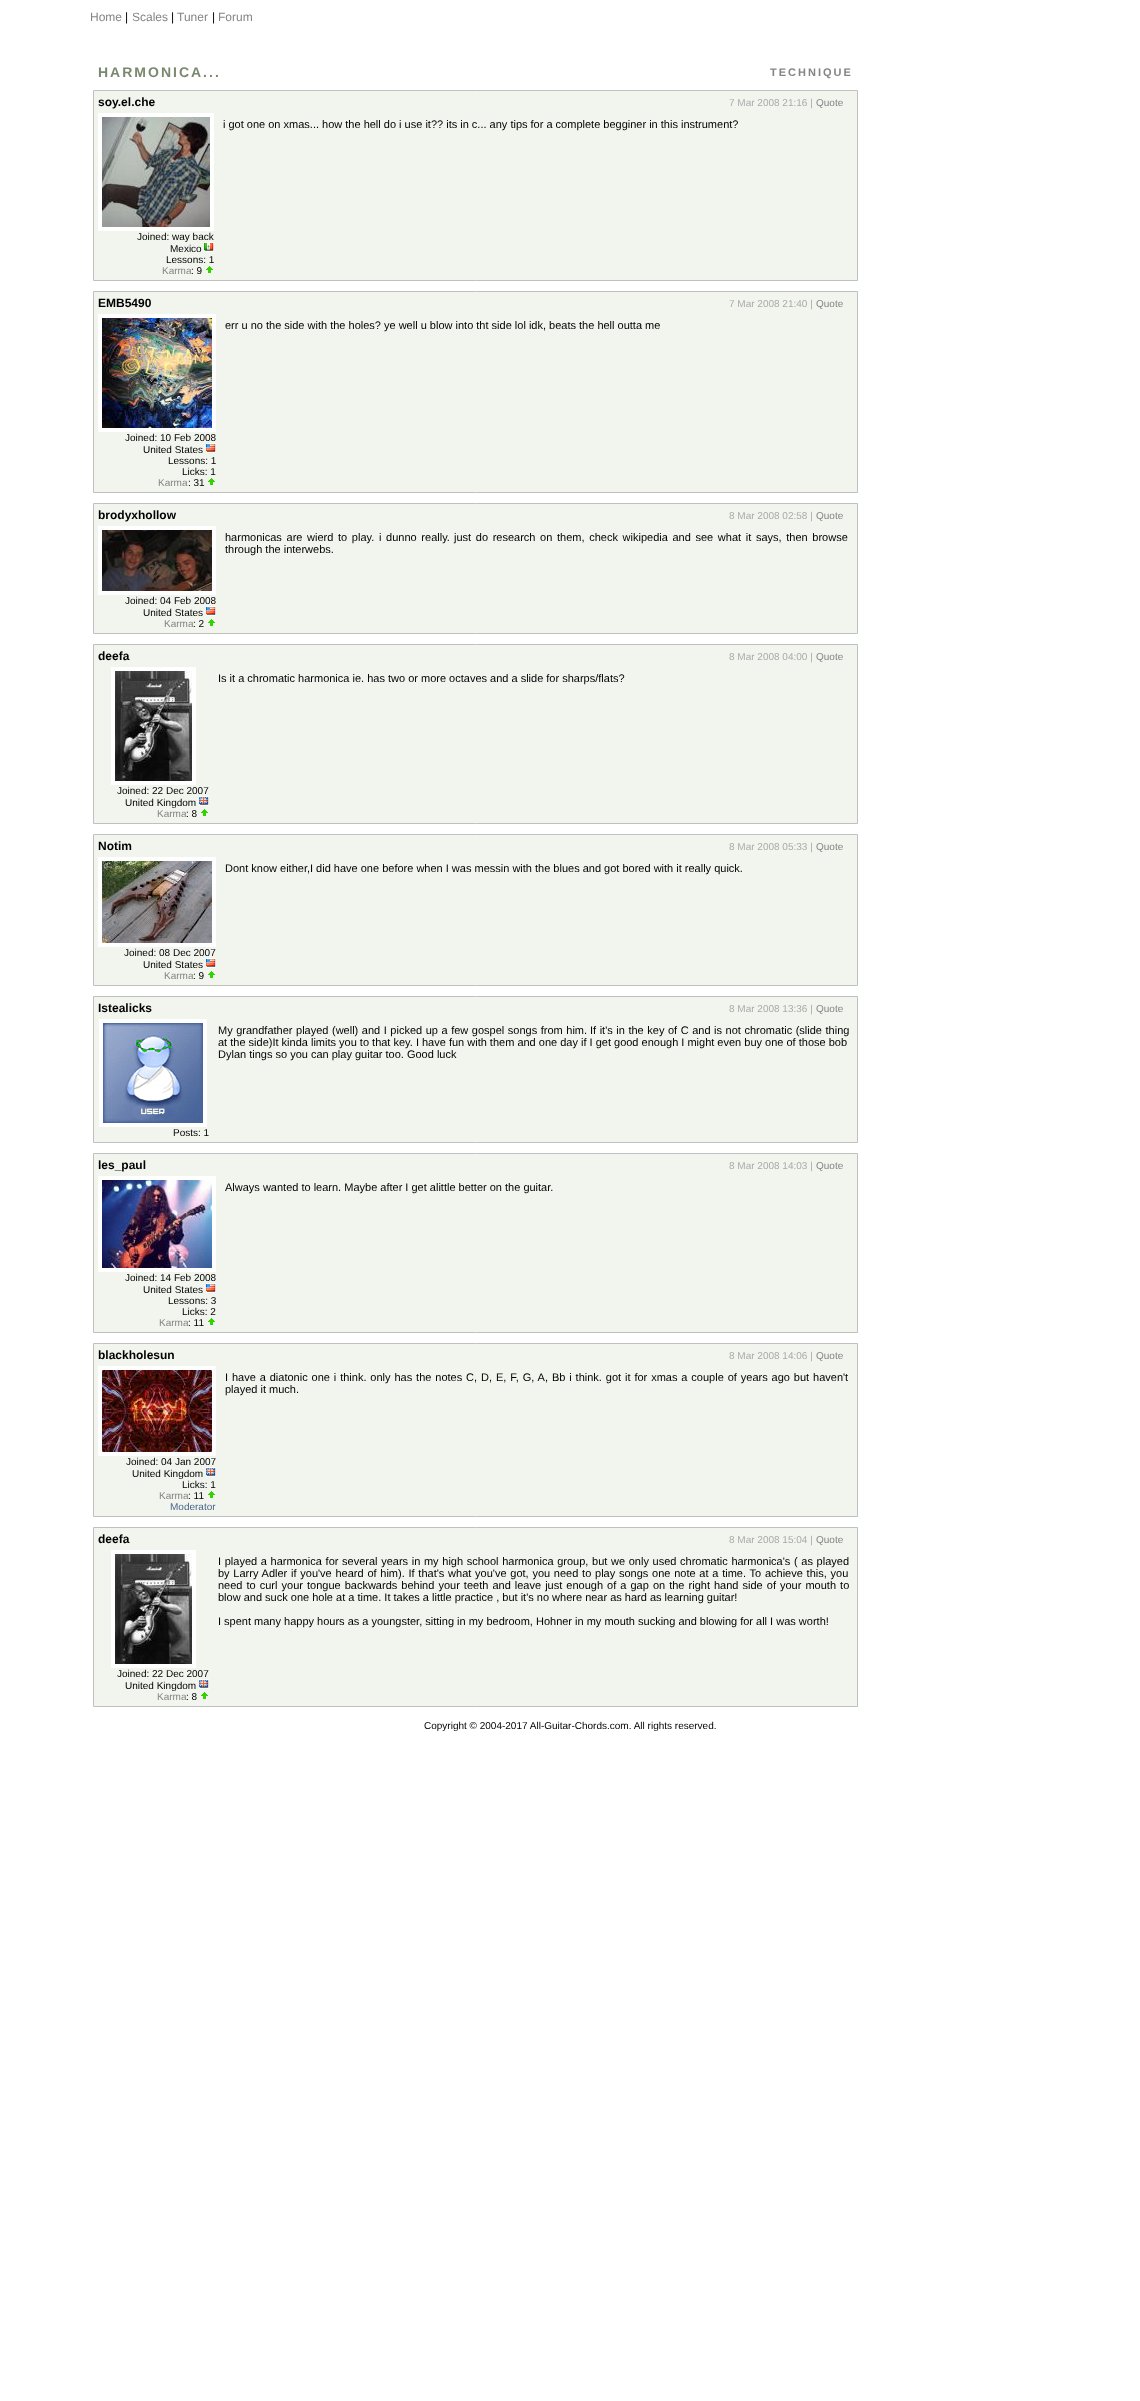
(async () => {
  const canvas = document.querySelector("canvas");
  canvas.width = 1140;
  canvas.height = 2401;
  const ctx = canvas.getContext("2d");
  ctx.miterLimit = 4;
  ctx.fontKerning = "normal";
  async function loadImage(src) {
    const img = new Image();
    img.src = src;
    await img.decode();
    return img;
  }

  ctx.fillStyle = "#ffffff";
  ctx.fillRect(0, 0, 1140, 2401);
  ctx.fillStyle = "#f1f5ee";
  ctx.beginPath();
  ctx.rect(93.5, 90.5, 764, 190);
  ctx.fill();
  ctx.strokeStyle = "#c0c0c0";
  ctx.stroke();
  ctx.strokeStyle = "#ffffff";
  ctx.lineWidth = 4;
  ctx.strokeRect(100, 115, 112, 114);
  ctx.drawImage(await loadImage("img/1.png"), 102, 117, 108, 110);
  ctx.drawImage(await loadImage("img/3.png"), 206, 266, 7, 7);
  ctx.beginPath();
  ctx.rect(93.5, 291.5, 764, 201);
  ctx.fill();
  ctx.strokeStyle = "#c0c0c0";
  ctx.lineWidth = 1;
  ctx.stroke();
  ctx.strokeStyle = "#ffffff";
  ctx.lineWidth = 4;
  ctx.strokeRect(100, 316, 114, 114);
  ctx.drawImage(await loadImage("img/4.png"), 102, 318, 110, 110);
  ctx.drawImage(await loadImage("img/5.png"), 206, 443, 10, 10);
  ctx.drawImage(await loadImage("img/3.png"), 208, 478, 7, 7);
  ctx.beginPath();
  ctx.rect(93.5, 503.5, 764, 130);
  ctx.fill();
  ctx.strokeStyle = "#c0c0c0";
  ctx.lineWidth = 1;
  ctx.stroke();
  ctx.strokeStyle = "#ffffff";
  ctx.lineWidth = 4;
  ctx.strokeRect(100, 528, 114, 65);
  ctx.drawImage(await loadImage("img/6.png"), 102, 530, 110, 61);
  ctx.drawImage(await loadImage("img/5.png"), 206, 606, 10, 10);
  ctx.drawImage(await loadImage("img/3.png"), 208, 619, 7, 7);
  ctx.beginPath();
  ctx.rect(93.5, 644.5, 764, 179);
  ctx.fill();
  ctx.strokeStyle = "#c0c0c0";
  ctx.lineWidth = 1;
  ctx.stroke();
  ctx.strokeStyle = "#ffffff";
  ctx.lineWidth = 4;
  ctx.strokeRect(113, 669, 81, 114);
  ctx.drawImage(await loadImage("img/7.png"), 115, 671, 77, 110);
  ctx.drawImage(await loadImage("img/8.png"), 199, 796, 10, 10);
  ctx.drawImage(await loadImage("img/3.png"), 201, 809, 7, 7);
  ctx.beginPath();
  ctx.rect(93.5, 834.5, 764, 151);
  ctx.fill();
  ctx.strokeStyle = "#c0c0c0";
  ctx.lineWidth = 1;
  ctx.stroke();
  ctx.strokeStyle = "#ffffff";
  ctx.lineWidth = 4;
  ctx.strokeRect(100, 859, 114, 86);
  ctx.drawImage(await loadImage("img/9.png"), 102, 861, 110, 82);
  ctx.drawImage(await loadImage("img/5.png"), 206, 958, 10, 10);
  ctx.drawImage(await loadImage("img/3.png"), 208, 971, 7, 7);
  ctx.beginPath();
  ctx.rect(93.5, 996.5, 764, 146);
  ctx.fill();
  ctx.strokeStyle = "#c0c0c0";
  ctx.lineWidth = 1;
  ctx.stroke();
  ctx.strokeStyle = "#ffffff";
  ctx.lineWidth = 4;
  ctx.strokeRect(101, 1021, 104, 104);
  ctx.drawImage(await loadImage("img/10.png"), 103, 1023, 100, 100);
  ctx.beginPath();
  ctx.rect(93.5, 1153.5, 764, 179);
  ctx.fill();
  ctx.strokeStyle = "#c0c0c0";
  ctx.lineWidth = 1;
  ctx.stroke();
  ctx.strokeStyle = "#ffffff";
  ctx.lineWidth = 4;
  ctx.strokeRect(100, 1178, 114, 92);
  ctx.drawImage(await loadImage("img/11.png"), 102, 1180, 110, 88);
  ctx.drawImage(await loadImage("img/5.png"), 206, 1283, 10, 10);
  ctx.drawImage(await loadImage("img/3.png"), 208, 1318, 7, 7);
  ctx.beginPath();
  ctx.rect(93.5, 1343.5, 764, 173);
  ctx.fill();
  ctx.strokeStyle = "#c0c0c0";
  ctx.lineWidth = 1;
  ctx.stroke();
  ctx.strokeStyle = "#ffffff";
  ctx.lineWidth = 4;
  ctx.strokeRect(100, 1368, 114, 86);
  ctx.drawImage(await loadImage("img/12.png"), 102, 1370, 110, 82);
  ctx.drawImage(await loadImage("img/8.png"), 206, 1467, 10, 10);
  ctx.drawImage(await loadImage("img/3.png"), 208, 1491, 7, 7);
  ctx.beginPath();
  ctx.rect(93.5, 1527.5, 764, 179);
  ctx.fill();
  ctx.strokeStyle = "#c0c0c0";
  ctx.lineWidth = 1;
  ctx.stroke();
  ctx.strokeStyle = "#ffffff";
  ctx.lineWidth = 4;
  ctx.strokeRect(113, 1552, 81, 114);
  ctx.drawImage(await loadImage("img/7.png"), 115, 1554, 77, 110);
  ctx.drawImage(await loadImage("img/8.png"), 199, 1679, 10, 10);
  ctx.drawImage(await loadImage("img/3.png"), 201, 1692, 7, 7);
  ctx.font = "12px Liberation Sans";
  ctx.fillStyle = "#868485";
  ctx.fillText("Home", 90, 21);
  ctx.fillStyle = "#000000";
  ctx.fillText("|", 125, 21);
  ctx.fillStyle = "#868485";
  ctx.fillText("Scales", 132, 21);
  ctx.fillStyle = "#000000";
  ctx.fillText("|", 171, 21);
  ctx.fillStyle = "#868485";
  ctx.fillText("Tuner", 177, 21);
  ctx.fillStyle = "#000000";
  ctx.fillText("|", 212, 21);
  ctx.fillStyle = "#868485";
  ctx.fillText("Forum", 218, 21);
  ctx.letterSpacing = "2px";
  ctx.font = "bold 14px Liberation Sans";
  ctx.fillStyle = "#7a896e";
  ctx.fillText("HARMONICA...", 98, 77);
  ctx.font = "bold 11px Liberation Sans";
  ctx.fillStyle = "#868485";
  ctx.fillText("TECHNIQUE", 770, 76);
  ctx.letterSpacing = "0px";
  ctx.font = "bold 12px Liberation Sans";
  ctx.fillStyle = "#000000";
  ctx.fillText("soy.el.che", 98, 106);
  ctx.font = "10px Liberation Sans";
  ctx.fillStyle = "#aaaaaa";
  ctx.fillText("7 Mar 2008 21:16 |", 729, 106);
  ctx.fillStyle = "#868485";
  ctx.fillText("Quote", 816, 106);
  ctx.font = "11px Liberation Sans";
  ctx.fillStyle = "#000000";
  ctx.fillText("i got one on xmas... how the hell do i use it?? its in c... any tips for a complete begginer in this instrument?", 223, 128);
  ctx.font = "10px Liberation Sans";
  ctx.fillText("Joined: way back", 137, 240);
  ctx.fillText("Mexico", 170, 252);
  ctx.drawImage(await loadImage("img/2.png"), 204, 242, 10, 10);
  ctx.fillText("Lessons: 1", 166, 263);
  ctx.fillStyle = "#868485";
  ctx.fillText("Karma", 162, 274);
  ctx.fillStyle = "#000000";
  ctx.fillText(": 9", 191, 274);
  ctx.font = "bold 12px Liberation Sans";
  ctx.fillText("EMB5490", 98, 307);
  ctx.font = "10px Liberation Sans";
  ctx.fillStyle = "#aaaaaa";
  ctx.fillText("7 Mar 2008 21:40 |", 729, 307);
  ctx.fillStyle = "#868485";
  ctx.fillText("Quote", 816, 307);
  ctx.font = "11px Liberation Sans";
  ctx.fillStyle = "#000000";
  ctx.fillText("err u no the side with the holes? ye well u blow into tht side lol idk, beats the hell outta me", 225, 329);
  ctx.font = "10px Liberation Sans";
  for (const [text, x, y] of [
    ["Joined: 10 Feb 2008", 125, 441],
    ["United States", 143, 453],
    ["Lessons: 1", 168, 464],
    ["Licks: 1", 182, 475],
  ]) {
    ctx.fillText(text, x, y);
  }
  ctx.fillStyle = "#868485";
  ctx.fillText("Karma", 158, 486);
  ctx.fillStyle = "#000000";
  ctx.fillText(": 31", 188, 486);
  ctx.font = "bold 12px Liberation Sans";
  ctx.fillText("brodyxhollow", 98, 519);
  ctx.font = "10px Liberation Sans";
  ctx.fillStyle = "#aaaaaa";
  ctx.fillText("8 Mar 2008 02:58 |", 729, 519);
  ctx.fillStyle = "#868485";
  ctx.fillText("Quote", 816, 519);
  ctx.wordSpacing = "1.6px";
  ctx.font = "11px Liberation Sans";
  ctx.fillStyle = "#000000";
  for (const [text, x, y] of [
    ["harmonicas are wierd to play.", 225, 541],
    ["i dunno really.", 379, 541],
    ["just do research on them, check wikipedia and see what it says, then browse", 454, 541],
  ]) {
    ctx.fillText(text, x, y);
  }
  ctx.wordSpacing = "0px";
  ctx.fillText("through the interwebs.", 225, 553);
  ctx.font = "10px Liberation Sans";
  ctx.fillText("Joined: 04 Feb 2008", 125, 604);
  ctx.fillText("United States", 143, 616);
  ctx.fillStyle = "#868485";
  ctx.fillText("Karma", 164, 627);
  ctx.fillStyle = "#000000";
  ctx.fillText(": 2", 193, 627);
  ctx.font = "bold 12px Liberation Sans";
  ctx.fillText("deefa", 98, 660);
  ctx.font = "10px Liberation Sans";
  ctx.fillStyle = "#aaaaaa";
  ctx.fillText("8 Mar 2008 04:00 |", 729, 660);
  ctx.fillStyle = "#868485";
  ctx.fillText("Quote", 816, 660);
  ctx.font = "11px Liberation Sans";
  ctx.fillStyle = "#000000";
  ctx.fillText("Is it a chromatic harmonica ie. has two or more octaves and a slide for sharps/flats?", 218, 682);
  ctx.font = "10px Liberation Sans";
  ctx.fillText("Joined: 22 Dec 2007", 117, 794);
  ctx.fillText("United Kingdom", 125, 806);
  ctx.fillStyle = "#868485";
  ctx.fillText("Karma", 157, 817);
  ctx.fillStyle = "#000000";
  ctx.fillText(": 8", 186, 817);
  ctx.font = "bold 12px Liberation Sans";
  ctx.fillText("Notim", 98, 850);
  ctx.font = "10px Liberation Sans";
  ctx.fillStyle = "#aaaaaa";
  ctx.fillText("8 Mar 2008 05:33 |", 729, 850);
  ctx.fillStyle = "#868485";
  ctx.fillText("Quote", 816, 850);
  ctx.font = "11px Liberation Sans";
  ctx.fillStyle = "#000000";
  ctx.fillText("Dont know either,I did have one before when I was messin with the blues and got bored with it really quick.", 225, 872);
  ctx.font = "10px Liberation Sans";
  ctx.fillText("Joined: 08 Dec 2007", 124, 956);
  ctx.fillText("United States", 143, 968);
  ctx.fillStyle = "#868485";
  ctx.fillText("Karma", 164, 979);
  ctx.fillStyle = "#000000";
  ctx.fillText(": 9", 193, 979);
  ctx.font = "bold 12px Liberation Sans";
  ctx.fillText("Istealicks", 98, 1012);
  ctx.font = "10px Liberation Sans";
  ctx.fillStyle = "#aaaaaa";
  ctx.fillText("8 Mar 2008 13:36 |", 729, 1012);
  ctx.fillStyle = "#868485";
  ctx.fillText("Quote", 816, 1012);
  ctx.wordSpacing = "0.5px";
  ctx.font = "11px Liberation Sans";
  ctx.fillStyle = "#000000";
  ctx.fillText("My grandfather played (well) and I picked up a few gospel songs from him.", 218, 1034);
  ctx.fillText("If it's in the key of C and is not chromatic (slide thing", 590, 1034);
  ctx.wordSpacing = "0px";
  ctx.fillText("at the side)It kinda limits you to that key. I have fun with them and one day if I get good enough I might even buy one of those bob", 218, 1046);
  ctx.fillText("Dylan tings so you can play guitar too. Good luck", 218, 1058);
  ctx.font = "10px Liberation Sans";
  ctx.fillText("Posts: 1", 173, 1136);
  ctx.font = "bold 12px Liberation Sans";
  ctx.fillText("les_paul", 98, 1169);
  ctx.font = "10px Liberation Sans";
  ctx.fillStyle = "#aaaaaa";
  ctx.fillText("8 Mar 2008 14:03 |", 729, 1169);
  ctx.fillStyle = "#868485";
  ctx.fillText("Quote", 816, 1169);
  ctx.font = "11px Liberation Sans";
  ctx.fillStyle = "#000000";
  ctx.fillText("Always wanted to learn. Maybe after I get alittle better on the guitar.", 225, 1191);
  ctx.font = "10px Liberation Sans";
  for (const [text, x, y] of [
    ["Joined: 14 Feb 2008", 125, 1281],
    ["United States", 143, 1293],
    ["Lessons: 3", 168, 1304],
    ["Licks: 2", 182, 1315],
  ]) {
    ctx.fillText(text, x, y);
  }
  ctx.fillStyle = "#868485";
  ctx.fillText("Karma", 159, 1326);
  ctx.fillStyle = "#000000";
  ctx.fillText(": 11", 188, 1326);
  ctx.font = "bold 12px Liberation Sans";
  ctx.fillText("blackholesun", 98, 1359);
  ctx.font = "10px Liberation Sans";
  ctx.fillStyle = "#aaaaaa";
  ctx.fillText("8 Mar 2008 14:06 |", 729, 1359);
  ctx.fillStyle = "#868485";
  ctx.fillText("Quote", 816, 1359);
  ctx.wordSpacing = "0.85px";
  ctx.font = "11px Liberation Sans";
  ctx.fillStyle = "#000000";
  ctx.fillText("I have a diatonic one i think. only has the notes C, D, E, F, G, A, Bb i think. got it for xmas a couple of years ago but haven't", 225, 1381);
  ctx.wordSpacing = "0px";
  ctx.fillText("played it much.", 225, 1393);
  ctx.font = "10px Liberation Sans";
  for (const [text, x, y] of [
    ["Joined: 04 Jan 2007", 126, 1465],
    ["United Kingdom", 132, 1477],
    ["Licks: 1", 182, 1488],
  ]) {
    ctx.fillText(text, x, y);
  }
  ctx.fillStyle = "#868485";
  ctx.fillText("Karma", 159, 1499);
  ctx.fillStyle = "#000000";
  ctx.fillText(": 11", 188, 1499);
  ctx.fillStyle = "#4a648b";
  ctx.fillText("Moderator", 170, 1510);
  ctx.font = "bold 12px Liberation Sans";
  ctx.fillStyle = "#000000";
  ctx.fillText("deefa", 98, 1543);
  ctx.font = "10px Liberation Sans";
  ctx.fillStyle = "#aaaaaa";
  ctx.fillText("8 Mar 2008 15:04 |", 729, 1543);
  ctx.fillStyle = "#868485";
  ctx.fillText("Quote", 816, 1543);
  ctx.wordSpacing = "0.6px";
  ctx.font = "11px Liberation Sans";
  ctx.fillStyle = "#000000";
  ctx.fillText("I played a harmonica for several years in my high school harmonica group, but we only used chromatic harmonica's ( as played", 218, 1565);
  ctx.wordSpacing = "0.7px";
  ctx.fillText("by Larry Adler if you've heard of him). If that's what you've got, you need to play songs one note at a time. To achieve this, you", 218, 1577);
  ctx.wordSpacing = "1px";
  ctx.fillText("need to curl your tongue backwards behind your teeth and leave just enough of a gap on the right hand side of your mouth to", 218, 1589);
  ctx.wordSpacing = "0px";
  ctx.fillText("blow and suck one hole at a time. It takes a little practice , but it's no where near as hard as learning guitar!", 218, 1601);
  ctx.fillText("I spent many happy hours as a youngster, sitting in my bedroom, Hohner in my mouth sucking and blowing for all I was worth!", 218, 1625);
  ctx.font = "10px Liberation Sans";
  ctx.fillText("Joined: 22 Dec 2007", 117, 1677);
  ctx.fillText("United Kingdom", 125, 1689);
  ctx.fillStyle = "#868485";
  ctx.fillText("Karma", 157, 1700);
  ctx.fillStyle = "#000000";
  ctx.fillText(": 8", 186, 1700);
  ctx.fillText("Copyright © 2004-2017 All-Guitar-Chords.com. All rights reserved.", 424, 1729);
})();
